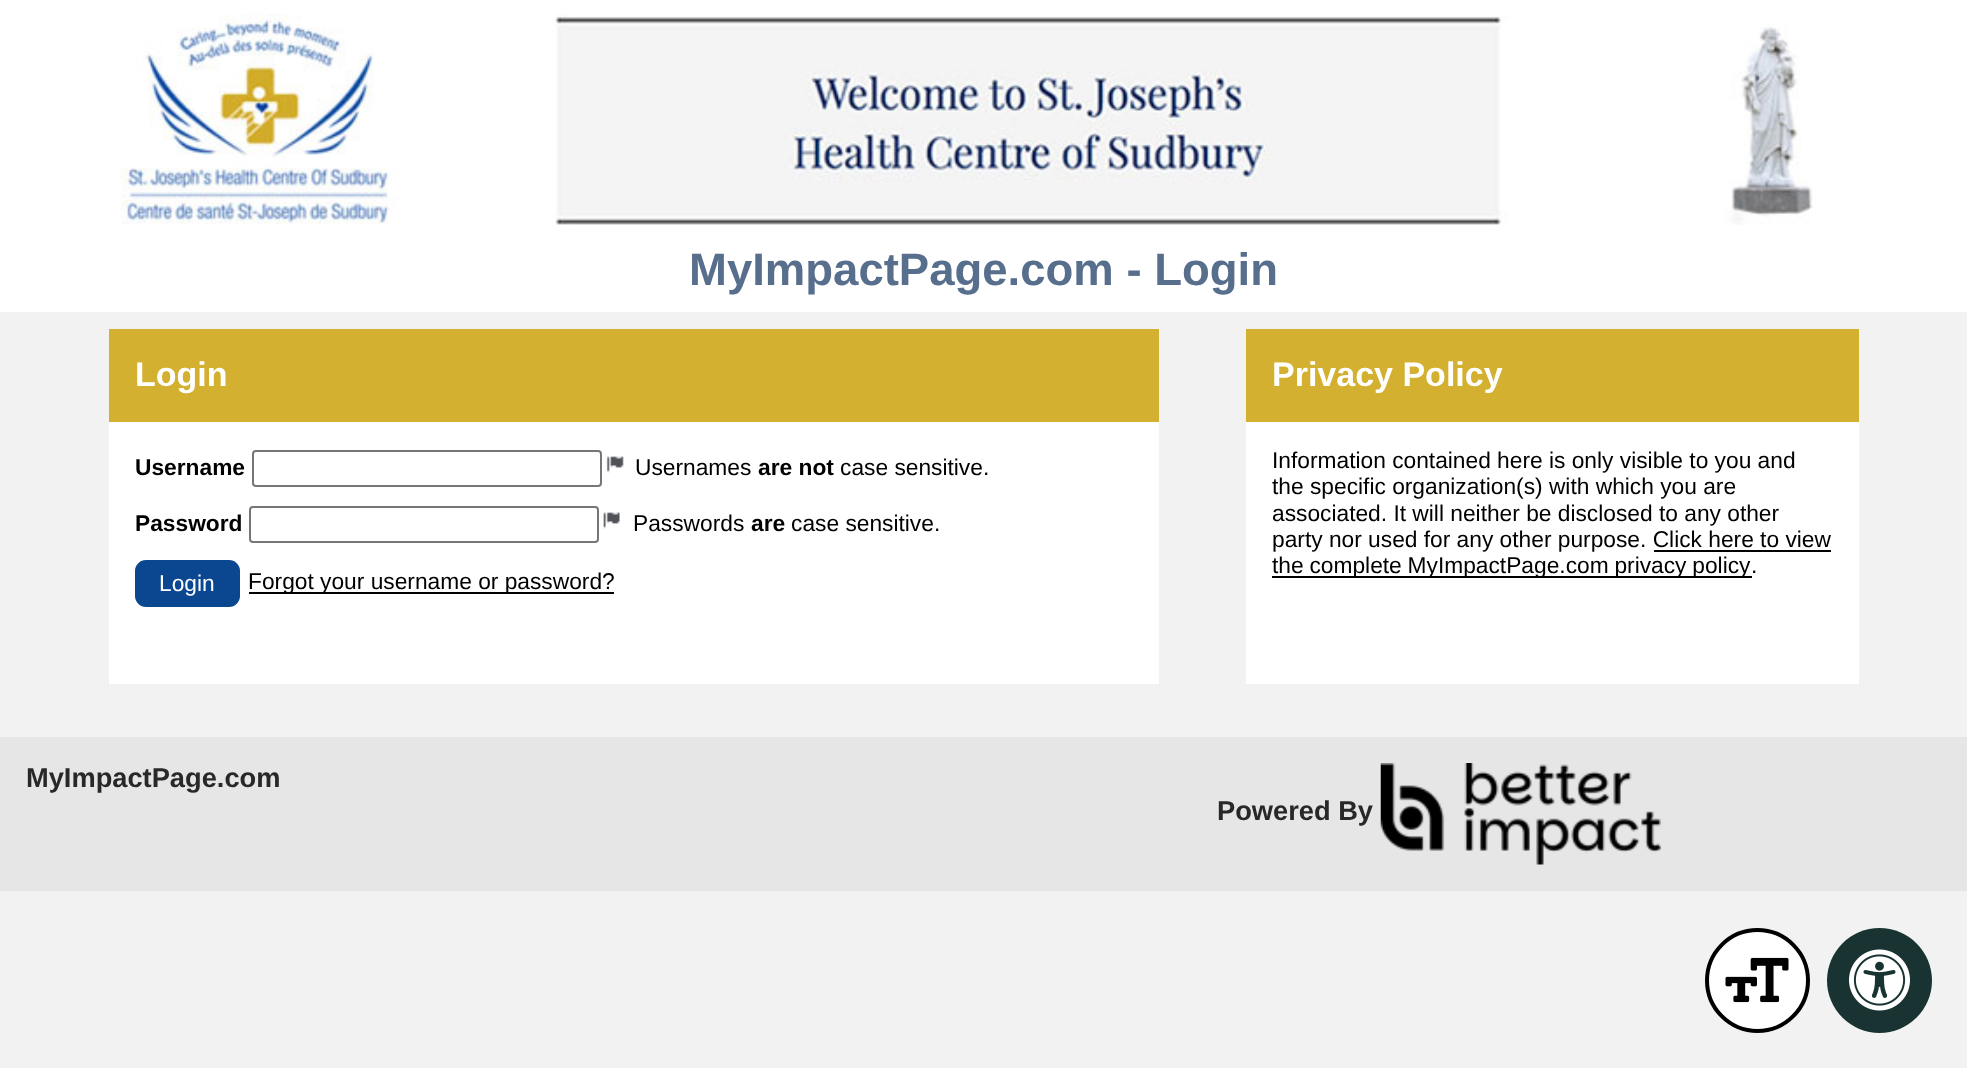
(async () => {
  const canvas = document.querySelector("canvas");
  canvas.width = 1967;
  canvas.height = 1068;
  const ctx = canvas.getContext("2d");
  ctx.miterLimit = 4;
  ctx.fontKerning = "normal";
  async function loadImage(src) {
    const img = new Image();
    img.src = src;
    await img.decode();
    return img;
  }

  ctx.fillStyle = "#f2f2f2";
  ctx.fillRect(0, 0, 1967, 1068);
  ctx.fillStyle = "#ffffff";
  ctx.fillRect(0, 0, 1967, 312);
  ctx.drawImage(await loadImage("img/1.png"), 120, 14, 1693, 211);
  ctx.fillStyle = "#d3b030";
  ctx.fillRect(109, 329, 1050, 93);
  ctx.fillStyle = "#ffffff";
  ctx.fillRect(109, 422, 1050, 262);
  ctx.beginPath();
  ctx.roundRect(253, 451, 348, 35, 3);
  ctx.strokeStyle = "#767676";
  ctx.lineWidth = 2;
  ctx.stroke();
  ctx.drawImage(await loadImage("img/2.png"), 606, 456, 18, 17);
  ctx.beginPath();
  ctx.roundRect(250, 507, 348, 35, 3);
  ctx.stroke();
  ctx.drawImage(await loadImage("img/3.png"), 603, 512, 17, 17);
  ctx.fillStyle = "#0b4790";
  ctx.beginPath();
  ctx.roundRect(136, 561, 103, 45, 10);
  ctx.fill();
  ctx.strokeStyle = "#0b4790";
  ctx.stroke();
  for (const [x, y, w, h, color] of [
    [249, 592, 365, 2, "#000000"],
    [1246, 329, 613, 93, "#d3b030"],
    [1246, 422, 613, 262, "#ffffff"],
    [1654, 550, 177, 2, "#000000"],
    [1272, 576, 480, 2, "#000000"],
    [0, 737, 1967, 154, "#e6e6e6"],
  ]) {
    ctx.fillStyle = color;
    ctx.fillRect(x, y, w, h);
  }
  ctx.drawImage(await loadImage("img/4.png"), 1380, 763, 281, 102);
  ctx.fillStyle = "#ffffff";
  ctx.beginPath();
  ctx.arc(1757.5, 980.5, 50.5, 0, Math.PI * 2);
  ctx.fill();
  ctx.strokeStyle = "#000000";
  ctx.lineWidth = 4;
  ctx.stroke();
  ctx.drawImage(await loadImage("img/5.png"), 1725, 957, 64, 46);
  ctx.fillStyle = "#183331";
  ctx.beginPath();
  ctx.arc(1879.5, 980.5, 52.5, 0, Math.PI * 2);
  ctx.fill();
  ctx.drawImage(await loadImage("img/6.png"), 1849, 949, 61, 62);
  ctx.font = "bold 45.5px Liberation Sans";
  ctx.fillStyle = "#576e8c";
  ctx.fillText("MyImpactPage.com - Login", 689, 285);
  ctx.font = "bold 34px Liberation Sans";
  ctx.fillStyle = "#ffffff";
  ctx.fillText("Login", 135, 386);
  ctx.font = "bold 22.75px Liberation Sans";
  ctx.fillStyle = "#000000";
  ctx.fillText("Username", 135, 475);
  ctx.font = "22.75px Liberation Sans";
  ctx.fillText("Usernames", 635, 475);
  ctx.font = "bold 22.75px Liberation Sans";
  ctx.fillText("are not", 758, 475);
  ctx.font = "22.75px Liberation Sans";
  ctx.fillText("case sensitive.", 840, 475);
  ctx.font = "bold 22.75px Liberation Sans";
  ctx.fillText("Password", 135, 531);
  ctx.font = "22.75px Liberation Sans";
  ctx.fillText("Passwords", 633, 531);
  ctx.font = "bold 22.75px Liberation Sans";
  ctx.fillText("are", 751, 531);
  ctx.font = "22.75px Liberation Sans";
  ctx.fillText("case sensitive.", 791, 531);
  ctx.fillStyle = "#ffffff";
  ctx.fillText("Login", 159, 591);
  ctx.fillStyle = "#000000";
  ctx.fillText("Forgot your username or password?", 248, 589);
  ctx.font = "bold 34px Liberation Sans";
  ctx.fillStyle = "#ffffff";
  ctx.fillText("Privacy Policy", 1272, 386);
  ctx.font = "22.75px Liberation Sans";
  ctx.fillStyle = "#000000";
  for (const [text, x, y] of [
    ["Information contained here is only visible to you and", 1272, 468],
    ["the specific organization(s) with which you are", 1272, 494],
    ["associated. It will neither be disclosed to any other", 1272, 521],
    ["party nor used for any other purpose. Click here to view", 1272, 547],
  ]) {
    ctx.fillText(text, x, y);
  }
  ctx.wordSpacing = "-0.5px";
  ctx.fillText("the complete MyImpactPage.com privacy policy", 1272, 573);
  ctx.wordSpacing = "0px";
  ctx.fillText(".", 1751, 573);
  ctx.font = "bold 27.25px Liberation Sans";
  ctx.fillStyle = "#282828";
  ctx.fillText("MyImpactPage.com", 26, 787);
  ctx.fillText("Powered By", 1217, 820);
})();
